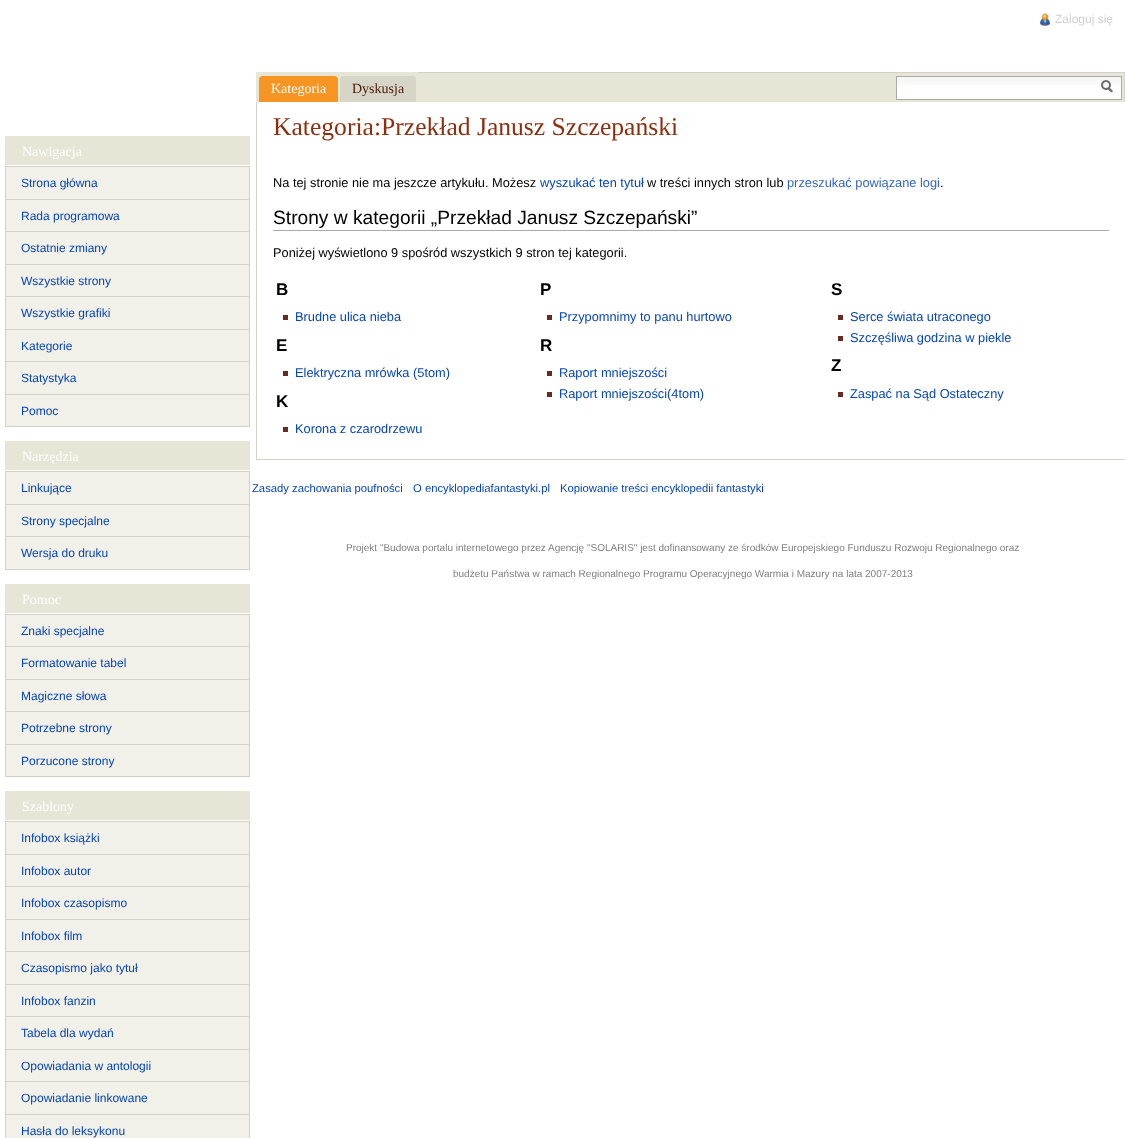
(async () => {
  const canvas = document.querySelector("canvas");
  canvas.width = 1125;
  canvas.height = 1138;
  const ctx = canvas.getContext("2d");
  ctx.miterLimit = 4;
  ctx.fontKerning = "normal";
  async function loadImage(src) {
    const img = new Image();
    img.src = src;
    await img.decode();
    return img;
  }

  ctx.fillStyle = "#ffffff";
  ctx.fillRect(0, 0, 1125, 1138);
  for (const [x, y, w, h, color] of [
    [418, 73, 706, 29, "#e7e5d6"],
    [418, 72, 707, 1, "#d4d2c7"],
    [1124, 72, 1, 30, "#d4d2c7"],
  ]) {
    ctx.fillStyle = color;
    ctx.fillRect(x, y, w, h);
  }
  ctx.drawImage(await loadImage("img/1.png"), 1040, 13, 10, 13);
  for (const [x, y, w, h, color] of [
    [256, 459, 869, 1, "#d4d2c7"],
    [256, 96, 1, 364, "#d4d2c7"],
    [256, 72, 162, 30, "#e7e5d6"],
  ]) {
    ctx.fillStyle = color;
    ctx.fillRect(x, y, w, h);
  }
  ctx.fillStyle = "#f69522";
  ctx.beginPath();
  ctx.roundRect(259, 76, 79, 26, [4, 4, 0, 0]);
  ctx.fill();
  ctx.fillStyle = "#d7d5c8";
  ctx.beginPath();
  ctx.roundRect(340, 76, 76, 26, [4, 4, 0, 0]);
  ctx.fill();
  ctx.fillStyle = "#ffffff";
  ctx.fillRect(897, 85, 224, 14);
  ctx.drawImage(await loadImage("img/2.png"), 897, 77, 224, 8);
  ctx.strokeStyle = "#aaaaaa";
  ctx.strokeRect(896.5, 76.5, 225, 23);
  ctx.drawImage(await loadImage("img/3.png"), 1101, 80, 12, 13);
  ctx.fillStyle = "#e7e5d6";
  ctx.fillRect(5, 136, 245, 29);
  ctx.strokeStyle = "#d4d2c7";
  ctx.strokeRect(5.5, 166.5, 244, 33);
  for (const [x, y, w, h, color] of [
    [6, 167, 243, 32, "#f2f1e9"],
    [249, 200, 1, 227, "#d4d2c7"],
    [5, 231, 245, 1, "#d4d2c7"],
    [5, 200, 1, 32, "#d4d2c7"],
    [6, 200, 243, 31, "#f2f1e9"],
    [5, 264, 245, 1, "#d4d2c7"],
    [5, 232, 1, 33, "#d4d2c7"],
    [6, 232, 243, 32, "#f2f1e9"],
    [5, 296, 245, 1, "#d4d2c7"],
    [5, 265, 1, 32, "#d4d2c7"],
    [6, 265, 243, 31, "#f2f1e9"],
    [5, 329, 245, 1, "#d4d2c7"],
    [5, 297, 1, 33, "#d4d2c7"],
    [6, 297, 243, 32, "#f2f1e9"],
    [5, 361, 245, 1, "#d4d2c7"],
    [5, 330, 1, 32, "#d4d2c7"],
    [6, 330, 243, 31, "#f2f1e9"],
    [5, 394, 245, 1, "#d4d2c7"],
    [5, 362, 1, 33, "#d4d2c7"],
    [6, 362, 243, 32, "#f2f1e9"],
    [5, 426, 245, 1, "#d4d2c7"],
    [5, 395, 1, 32, "#d4d2c7"],
    [6, 395, 243, 31, "#f2f1e9"],
    [5, 441, 245, 29, "#e7e5d6"],
  ]) {
    ctx.fillStyle = color;
    ctx.fillRect(x, y, w, h);
  }
  ctx.strokeRect(5.5, 471.5, 244, 33);
  for (const [x, y, w, h, color] of [
    [6, 472, 243, 32, "#f2f1e9"],
    [249, 505, 1, 65, "#d4d2c7"],
    [5, 536, 245, 1, "#d4d2c7"],
    [5, 505, 1, 32, "#d4d2c7"],
    [6, 505, 243, 31, "#f2f1e9"],
    [5, 569, 245, 1, "#d4d2c7"],
    [5, 537, 1, 33, "#d4d2c7"],
    [6, 537, 243, 32, "#f2f1e9"],
    [5, 584, 245, 29, "#e7e5d6"],
  ]) {
    ctx.fillStyle = color;
    ctx.fillRect(x, y, w, h);
  }
  ctx.strokeRect(5.5, 614.5, 244, 32);
  for (const [x, y, w, h, color] of [
    [6, 615, 243, 31, "#f2f1e9"],
    [249, 647, 1, 130, "#d4d2c7"],
    [5, 679, 245, 1, "#d4d2c7"],
    [5, 647, 1, 33, "#d4d2c7"],
    [6, 647, 243, 32, "#f2f1e9"],
    [5, 711, 245, 1, "#d4d2c7"],
    [5, 680, 1, 32, "#d4d2c7"],
    [6, 680, 243, 31, "#f2f1e9"],
    [5, 744, 245, 1, "#d4d2c7"],
    [5, 712, 1, 33, "#d4d2c7"],
    [6, 712, 243, 32, "#f2f1e9"],
    [5, 776, 245, 1, "#d4d2c7"],
    [5, 745, 1, 32, "#d4d2c7"],
    [6, 745, 243, 31, "#f2f1e9"],
    [5, 791, 245, 29, "#e7e5d6"],
  ]) {
    ctx.fillStyle = color;
    ctx.fillRect(x, y, w, h);
  }
  ctx.strokeRect(5.5, 821.5, 244, 33);
  for (const [x, y, w, h, color] of [
    [6, 822, 243, 32, "#f2f1e9"],
    [249, 855, 1, 283, "#d4d2c7"],
    [5, 886, 245, 1, "#d4d2c7"],
    [5, 855, 1, 32, "#d4d2c7"],
    [6, 855, 243, 31, "#f2f1e9"],
    [5, 919, 245, 1, "#d4d2c7"],
    [5, 887, 1, 33, "#d4d2c7"],
    [6, 887, 243, 32, "#f2f1e9"],
    [5, 951, 245, 1, "#d4d2c7"],
    [5, 920, 1, 32, "#d4d2c7"],
    [6, 920, 243, 31, "#f2f1e9"],
    [5, 984, 245, 1, "#d4d2c7"],
    [5, 952, 1, 33, "#d4d2c7"],
    [6, 952, 243, 32, "#f2f1e9"],
    [5, 1016, 245, 1, "#d4d2c7"],
    [5, 985, 1, 32, "#d4d2c7"],
    [6, 985, 243, 31, "#f2f1e9"],
    [5, 1049, 245, 1, "#d4d2c7"],
    [5, 1017, 1, 33, "#d4d2c7"],
    [6, 1017, 243, 32, "#f2f1e9"],
    [5, 1081, 245, 1, "#d4d2c7"],
    [5, 1050, 1, 32, "#d4d2c7"],
    [6, 1050, 243, 31, "#f2f1e9"],
    [5, 1114, 245, 1, "#d4d2c7"],
    [5, 1082, 1, 56, "#d4d2c7"],
    [6, 1082, 243, 32, "#f2f1e9"],
    [6, 1115, 243, 23, "#f2f1e9"],
    [273, 230, 836, 1, "#aaaaaa"],
    [283, 315, 5, 5, "#682a24"],
    [283, 371, 5, 5, "#682a24"],
    [283, 427, 5, 5, "#682a24"],
    [547, 315, 5, 5, "#682a24"],
    [547, 371, 5, 5, "#682a24"],
    [547, 392, 5, 5, "#682a24"],
    [838, 315, 5, 5, "#682a24"],
    [838, 336, 5, 5, "#682a24"],
    [838, 392, 5, 5, "#682a24"],
  ]) {
    ctx.fillStyle = color;
    ctx.fillRect(x, y, w, h);
  }
  ctx.font = "12px Liberation Sans";
  ctx.fillStyle = "#cfcfcf";
  ctx.fillText("Zaloguj się", 1055, 23);
  ctx.font = "14px Liberation Serif";
  ctx.fillStyle = "#ffffff";
  ctx.fillText("Kategoria", 271, 93);
  ctx.fillStyle = "#491706";
  ctx.fillText("Dyskusja", 352, 93);
  ctx.fillStyle = "#ffffff";
  ctx.fillText("Nawigacja", 22, 156);
  ctx.font = "12px Liberation Sans";
  ctx.fillStyle = "#0645ad";
  for (const [text, x, y] of [
    ["Strona główna", 21, 187],
    ["Rada programowa", 21, 220],
    ["Ostatnie zmiany", 21, 252],
    ["Wszystkie strony", 21, 285],
    ["Wszystkie grafiki", 21, 317],
    ["Kategorie", 21, 350],
    ["Statystyka", 21, 382],
    ["Pomoc", 21, 415],
  ]) {
    ctx.fillText(text, x, y);
  }
  ctx.font = "14px Liberation Serif";
  ctx.fillStyle = "#ffffff";
  ctx.fillText("Narzędzia", 22, 461);
  ctx.font = "12px Liberation Sans";
  ctx.fillStyle = "#0645ad";
  for (const [text, x, y] of [
    ["Linkujące", 21, 492],
    ["Strony specjalne", 21, 525],
    ["Wersja do druku", 21, 557],
  ]) {
    ctx.fillText(text, x, y);
  }
  ctx.font = "14px Liberation Serif";
  ctx.fillStyle = "#ffffff";
  ctx.fillText("Pomoc", 22, 604);
  ctx.font = "12px Liberation Sans";
  ctx.fillStyle = "#0645ad";
  for (const [text, x, y] of [
    ["Znaki specjalne", 21, 635],
    ["Formatowanie tabel", 21, 667],
    ["Magiczne słowa", 21, 700],
    ["Potrzebne strony", 21, 732],
    ["Porzucone strony", 21, 765],
  ]) {
    ctx.fillText(text, x, y);
  }
  ctx.font = "14px Liberation Serif";
  ctx.fillStyle = "#ffffff";
  ctx.fillText("Szablony", 22, 811);
  ctx.font = "12px Liberation Sans";
  ctx.fillStyle = "#0645ad";
  for (const [text, x, y] of [
    ["Infobox książki", 21, 842],
    ["Infobox autor", 21, 875],
    ["Infobox czasopismo", 21, 907],
    ["Infobox film", 21, 940],
    ["Czasopismo jako tytuł", 21, 972],
    ["Infobox fanzin", 21, 1005],
    ["Tabela dla wydań", 21, 1037],
    ["Opowiadania w antologii", 21, 1070],
    ["Opowiadanie linkowane", 21, 1102],
    ["Hasła do leksykonu", 21, 1135],
  ]) {
    ctx.fillText(text, x, y);
  }
  ctx.font = "25.6px Liberation Serif";
  ctx.fillStyle = "#8b2f10";
  ctx.fillText("Kategoria:Przekład Janusz Szczepański", 273, 135);
  ctx.font = "12.8px Liberation Sans";
  ctx.fillStyle = "#000000";
  ctx.fillText("Na tej stronie nie ma jeszcze artykułu. Możesz", 273, 187);
  ctx.fillStyle = "#0645ad";
  ctx.fillText("wyszukać ten tytuł", 540, 187);
  ctx.fillStyle = "#000000";
  ctx.fillText("w treści innych stron lub", 647, 187);
  ctx.fillStyle = "#3366bb";
  ctx.fillText("przeszukać powiązane logi", 787, 187);
  ctx.fillStyle = "#000000";
  ctx.fillText(".", 940, 187);
  ctx.font = "19.2px Liberation Sans";
  ctx.fillText("Strony w kategorii „Przekład Janusz Szczepański”", 273, 224);
  ctx.font = "12.8px Liberation Sans";
  ctx.fillText("Poniżej wyświetlono 9 spośród wszystkich 9 stron tej kategorii.", 273, 257);
  ctx.font = "bold 17px Liberation Sans";
  ctx.fillText("B", 276, 295);
  ctx.font = "12.8px Liberation Sans";
  ctx.fillStyle = "#0645ad";
  ctx.fillText("Brudne ulica nieba", 295, 321);
  ctx.font = "bold 17px Liberation Sans";
  ctx.fillStyle = "#000000";
  ctx.fillText("E", 276, 351);
  ctx.font = "12.8px Liberation Sans";
  ctx.fillStyle = "#0645ad";
  ctx.fillText("Elektryczna mrówka (5tom)", 295, 377);
  ctx.font = "bold 17px Liberation Sans";
  ctx.fillStyle = "#000000";
  ctx.fillText("K", 276, 407);
  ctx.font = "12.8px Liberation Sans";
  ctx.fillStyle = "#0645ad";
  ctx.fillText("Korona z czarodrzewu", 295, 433);
  ctx.font = "bold 17px Liberation Sans";
  ctx.fillStyle = "#000000";
  ctx.fillText("P", 540, 295);
  ctx.font = "12.8px Liberation Sans";
  ctx.fillStyle = "#0645ad";
  ctx.fillText("Przypomnimy to panu hurtowo", 559, 321);
  ctx.font = "bold 17px Liberation Sans";
  ctx.fillStyle = "#000000";
  ctx.fillText("R", 540, 351);
  ctx.font = "12.8px Liberation Sans";
  ctx.fillStyle = "#0645ad";
  ctx.fillText("Raport mniejszości", 559, 377);
  ctx.fillText("Raport mniejszości(4tom)", 559, 398);
  ctx.font = "bold 17px Liberation Sans";
  ctx.fillStyle = "#000000";
  ctx.fillText("S", 831, 295);
  ctx.font = "12.8px Liberation Sans";
  ctx.fillStyle = "#0645ad";
  ctx.fillText("Serce świata utraconego", 850, 321);
  ctx.fillText("Szczęśliwa godzina w piekle", 850, 342);
  ctx.font = "bold 17px Liberation Sans";
  ctx.fillStyle = "#000000";
  ctx.fillText("Z", 831, 371);
  ctx.font = "12.8px Liberation Sans";
  ctx.fillStyle = "#0645ad";
  ctx.fillText("Zaspać na Sąd Ostateczny", 850, 398);
  ctx.font = "11.25px Liberation Sans";
  for (const [text, x, y] of [
    ["Zasady zachowania poufności", 252, 492],
    ["O encyklopediafantastyki.pl", 413, 492],
    ["Kopiowanie treści encyklopedii fantastyki", 560, 492],
  ]) {
    ctx.fillText(text, x, y);
  }
  ctx.font = "10px Liberation Sans";
  ctx.fillStyle = "#808080";
  ctx.fillText("Projekt \"Budowa portalu internetowego przez Agencję \"SOLARIS\" jest dofinansowany ze środków Europejskiego Funduszu Rozwoju Regionalnego oraz", 346, 551);
  ctx.fillText("budżetu Państwa w ramach Regionalnego Programu Operacyjnego Warmia i Mazury na lata 2007-2013", 453, 577);
})();
